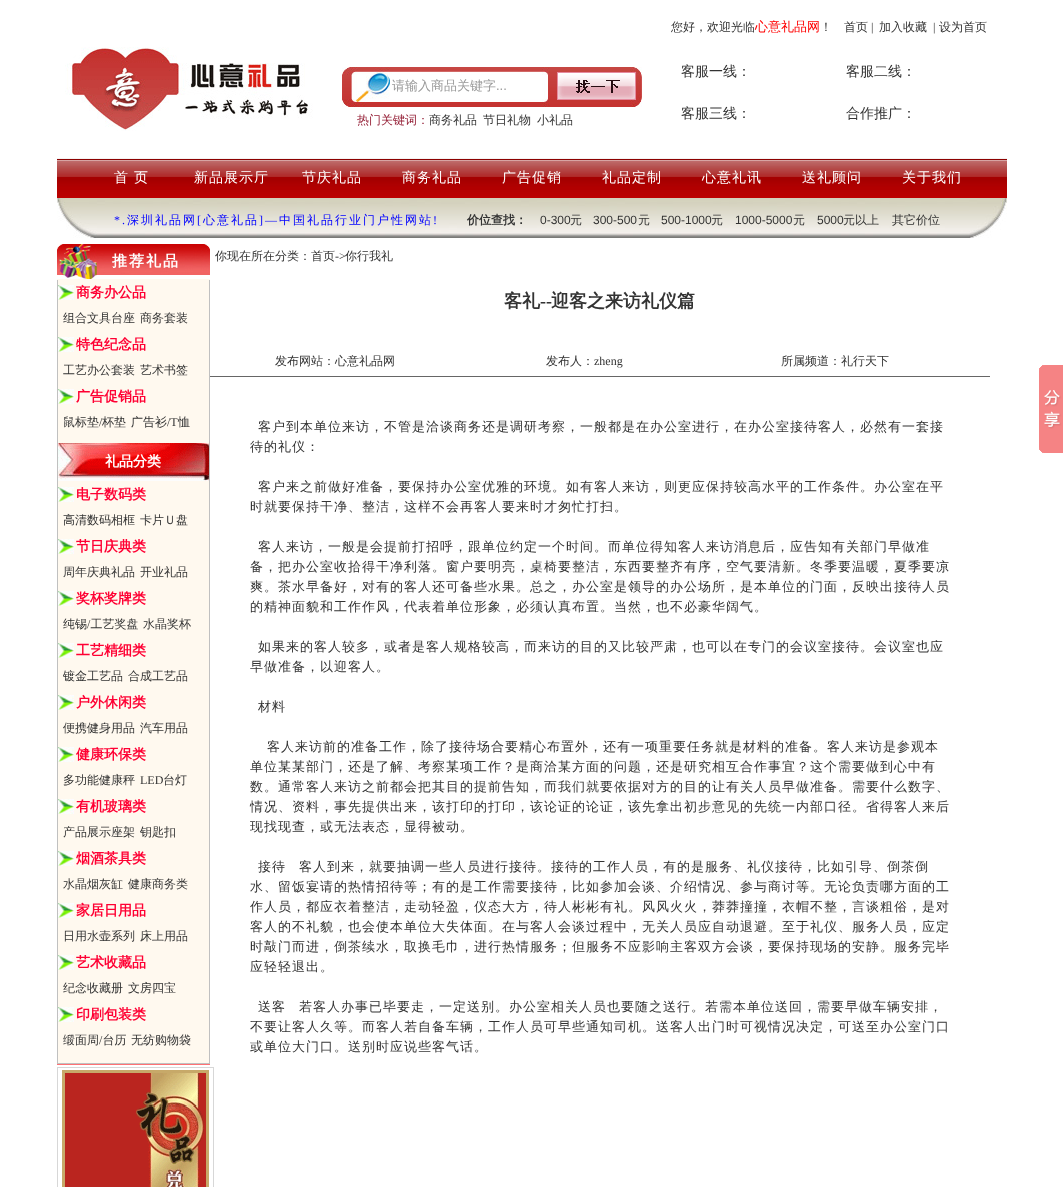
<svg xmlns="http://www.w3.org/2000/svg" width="1063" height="1187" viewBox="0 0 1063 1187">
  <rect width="100%" height="100%" fill="rgb(255,255,255)"/>
  <text x="671" y="31" font-family="WenQuanYi Zen Hei" font-size="12" font-weight="500" fill="rgb(51,51,51)">您好，欢迎光临</text>
  <text x="755" y="31" font-family="WenQuanYi Zen Hei" font-size="13" font-weight="500" fill="rgb(255,0,0)">心意礼品网</text>
  <g font-family="WenQuanYi Zen Hei" font-size="12" font-weight="500" fill="rgb(51,51,51)">
    <text x="820" y="31">！</text>
    <text x="844" y="31">首页</text>
  </g>
  <text x="871" y="31" font-family="Liberation Serif" font-size="12" fill="rgb(51,51,51)">|</text>
  <text x="879" y="31" font-family="WenQuanYi Zen Hei" font-size="12" font-weight="500" fill="rgb(51,51,51)">加入收藏</text>
  <text x="933" y="31" font-family="Liberation Serif" font-size="12" fill="rgb(51,51,51)">|</text>
  <text x="939" y="31" font-family="WenQuanYi Zen Hei" font-size="12" font-weight="500" fill="rgb(51,51,51)">设为首页</text>
  <image x="65" y="47" width="248" height="84" href="pic1.png"/>
  <image x="342" y="67" width="300" height="40" href="pic2.png"/>
  <rect x="392" y="72" width="150" height="2" fill="rgb(255,255,255)"/>
  <text x="392" y="90" font-family="WenQuanYi Zen Hei" font-size="13" font-weight="500" fill="rgb(153,153,153)">请输入商品关键字</text>
  <text x="496" y="90" font-family="Liberation Sans" font-size="13" fill="rgb(153,153,153)">...</text>
  <image x="557" y="72" width="79" height="28" href="pic3.png"/>
  <text x="357" y="124" font-family="WenQuanYi Zen Hei" font-size="12" font-weight="500" fill="rgb(149,32,55)">热门关键词：</text>
  <g font-family="WenQuanYi Zen Hei" font-size="12" font-weight="500" fill="rgb(51,51,51)">
    <text x="429" y="124">商务礼品</text>
    <text x="483" y="124">节日礼物</text>
    <text x="537" y="124">小礼品</text>
  </g>
  <g font-family="WenQuanYi Zen Hei" font-size="14" font-weight="500" fill="rgb(51,51,51)">
    <text x="681" y="76">客服一线：</text>
    <text x="846" y="76">客服二线：</text>
    <text x="681" y="118">客服三线：</text>
    <text x="846" y="118">合作推广：</text>
  </g>
  <image x="57" y="158" width="950" height="40" href="pic4.png"/>
  <g font-family="WenQuanYi Zen Hei" font-size="14" font-weight="500" letter-spacing="1" fill="rgb(255,255,255)">
    <text x="114" y="182">首</text>
    <text x="134" y="182">页</text>
    <text x="194" y="182">新品展示厅</text>
    <text x="302" y="182">节庆礼品</text>
    <text x="402" y="182">商务礼品</text>
    <text x="502" y="182">广告促销</text>
    <text x="602" y="182">礼品定制</text>
    <text x="702" y="182">心意礼讯</text>
    <text x="802" y="182">送礼顾问</text>
    <text x="902" y="182">关于我们</text>
  </g>
  <image x="57" y="198" width="950" height="40" href="pic5.png"/>
  <text x="114" y="224" font-family="Liberation Serif" font-size="12" letter-spacing="2" fill="rgb(0,0,255)">*.</text>
  <text x="127" y="224" font-family="WenQuanYi Zen Hei" font-size="12" font-weight="500" letter-spacing="2" fill="rgb(0,0,255)">深圳礼品网</text>
  <text x="197" y="224" font-family="Liberation Serif" font-size="12" letter-spacing="2" fill="rgb(0,0,255)">[</text>
  <text x="203" y="224" font-family="WenQuanYi Zen Hei" font-size="12" font-weight="500" letter-spacing="2" fill="rgb(0,0,255)">心意礼品</text>
  <text x="259" y="224" font-family="Liberation Serif" font-size="12" letter-spacing="2" fill="rgb(0,0,255)">]—</text>
  <text x="279" y="224" font-family="WenQuanYi Zen Hei" font-size="12" font-weight="500" letter-spacing="2" fill="rgb(0,0,255)">中国礼品行业门户性网站</text>
  <text x="433" y="224" font-family="Liberation Serif" font-size="12" letter-spacing="2" fill="rgb(0,0,255)">!</text>
  <text x="467" y="224" font-family="WenQuanYi Zen Hei" font-size="12" font-weight="bold" fill="rgb(51,51,51)">价位查找：</text>
  <text x="540" y="224" font-family="Liberation Sans" font-size="12" fill="rgb(51,51,51)">0-300</text>
  <text x="570" y="224" font-family="WenQuanYi Zen Hei" font-size="12" font-weight="500" fill="rgb(51,51,51)">元</text>
  <text x="593" y="224" font-family="Liberation Sans" font-size="12" fill="rgb(51,51,51)">300-500</text>
  <text x="638" y="224" font-family="WenQuanYi Zen Hei" font-size="12" font-weight="500" fill="rgb(51,51,51)">元</text>
  <text x="661" y="224" font-family="Liberation Sans" font-size="12" fill="rgb(51,51,51)">500-1000</text>
  <text x="711" y="224" font-family="WenQuanYi Zen Hei" font-size="12" font-weight="500" fill="rgb(51,51,51)">元</text>
  <text x="735" y="224" font-family="Liberation Sans" font-size="12" fill="rgb(51,51,51)">1000-5000</text>
  <text x="793" y="224" font-family="WenQuanYi Zen Hei" font-size="12" font-weight="500" fill="rgb(51,51,51)">元</text>
  <text x="817" y="224" font-family="Liberation Sans" font-size="12" fill="rgb(51,51,51)">5000</text>
  <g font-family="WenQuanYi Zen Hei" font-size="12" font-weight="500" fill="rgb(51,51,51)">
    <text x="843" y="224">元以上</text>
    <text x="892" y="224">其它价位</text>
  </g>
  <rect x="57" y="279" width="153" height="784" fill="rgb(255,249,239)"/>
  <rect x="57" y="1064" width="153" height="1" fill="rgb(255,113,116)"/>
  <image x="57" y="244" width="153" height="35" href="pic6.png"/>
  <text x="112" y="266" font-family="WenQuanYi Zen Hei" font-size="15" font-weight="bold" letter-spacing="2" fill="rgb(255,255,255)">推荐礼品</text>
  <rect x="209" y="280" width="1" height="784" fill="rgb(192,192,192)"/>
  <rect x="57" y="1063" width="153" height="1" fill="rgb(192,192,192)"/>
  <rect x="57" y="280" width="1" height="784" fill="rgb(192,192,192)"/>
  <image x="58" y="285" width="16" height="15" href="pic7.png"/>
  <text x="76" y="297" font-family="WenQuanYi Zen Hei" font-size="14" font-weight="bold" fill="rgb(255,0,51)">商务办公品</text>
  <g font-family="WenQuanYi Zen Hei" font-size="12" font-weight="500" fill="rgb(51,51,51)">
    <text x="63" y="322">组合文具台座</text>
    <text x="140" y="322">商务套装</text>
  </g>
  <image x="58" y="337" width="16" height="15" href="pic7.png"/>
  <text x="76" y="349" font-family="WenQuanYi Zen Hei" font-size="14" font-weight="bold" fill="rgb(255,0,51)">特色纪念品</text>
  <g font-family="WenQuanYi Zen Hei" font-size="12" font-weight="500" fill="rgb(51,51,51)">
    <text x="63" y="374">工艺办公套装</text>
    <text x="140" y="374">艺术书签</text>
  </g>
  <image x="58" y="389" width="16" height="15" href="pic7.png"/>
  <text x="76" y="401" font-family="WenQuanYi Zen Hei" font-size="14" font-weight="bold" fill="rgb(255,0,51)">广告促销品</text>
  <text x="63" y="426" font-family="WenQuanYi Zen Hei" font-size="12" font-weight="500" fill="rgb(51,51,51)">鼠标垫</text>
  <text x="99" y="426" font-family="Liberation Serif" font-size="12" fill="rgb(51,51,51)">/</text>
  <g font-family="WenQuanYi Zen Hei" font-size="12" font-weight="500" fill="rgb(51,51,51)">
    <text x="102" y="426">杯垫</text>
    <text x="131" y="426">广告衫</text>
  </g>
  <text x="167" y="426" font-family="Liberation Serif" font-size="12" fill="rgb(51,51,51)">/T</text>
  <text x="178" y="426" font-family="WenQuanYi Zen Hei" font-size="12" font-weight="500" fill="rgb(51,51,51)">恤</text>
  <image x="58" y="443" width="151" height="38" href="pic8.png"/>
  <text x="105" y="466" font-family="WenQuanYi Zen Hei" font-size="14" font-weight="bold" fill="rgb(255,255,255)">礼品分类</text>
  <image x="58" y="487" width="16" height="15" href="pic7.png"/>
  <text x="76" y="499" font-family="WenQuanYi Zen Hei" font-size="14" font-weight="bold" fill="rgb(255,0,51)">电子数码类</text>
  <g font-family="WenQuanYi Zen Hei" font-size="12" font-weight="500" fill="rgb(51,51,51)">
    <text x="63" y="524">高清数码相框</text>
    <text x="140" y="524">卡片Ｕ盘</text>
  </g>
  <image x="58" y="539" width="16" height="15" href="pic7.png"/>
  <text x="76" y="551" font-family="WenQuanYi Zen Hei" font-size="14" font-weight="bold" fill="rgb(255,0,51)">节日庆典类</text>
  <g font-family="WenQuanYi Zen Hei" font-size="12" font-weight="500" fill="rgb(51,51,51)">
    <text x="63" y="576">周年庆典礼品</text>
    <text x="140" y="576">开业礼品</text>
  </g>
  <image x="58" y="591" width="16" height="15" href="pic7.png"/>
  <text x="76" y="603" font-family="WenQuanYi Zen Hei" font-size="14" font-weight="bold" fill="rgb(255,0,51)">奖杯奖牌类</text>
  <text x="63" y="628" font-family="WenQuanYi Zen Hei" font-size="12" font-weight="500" fill="rgb(51,51,51)">纯锡 工艺奖盘</text>
  <text x="87" y="628" font-family="Liberation Serif" font-size="12" fill="rgb(51,51,51)">/</text>
  <text x="143" y="628" font-family="WenQuanYi Zen Hei" font-size="12" font-weight="500" fill="rgb(51,51,51)">水晶奖杯</text>
  <image x="58" y="643" width="16" height="15" href="pic7.png"/>
  <text x="76" y="655" font-family="WenQuanYi Zen Hei" font-size="14" font-weight="bold" fill="rgb(255,0,51)">工艺精细类</text>
  <g font-family="WenQuanYi Zen Hei" font-size="12" font-weight="500" fill="rgb(51,51,51)">
    <text x="63" y="680">镀金工艺品</text>
    <text x="128" y="680">合成工艺品</text>
  </g>
  <image x="58" y="695" width="16" height="15" href="pic7.png"/>
  <text x="76" y="707" font-family="WenQuanYi Zen Hei" font-size="14" font-weight="bold" fill="rgb(255,0,51)">户外休闲类</text>
  <g font-family="WenQuanYi Zen Hei" font-size="12" font-weight="500" fill="rgb(51,51,51)">
    <text x="63" y="732">便携健身用品</text>
    <text x="140" y="732">汽车用品</text>
  </g>
  <image x="58" y="747" width="16" height="15" href="pic7.png"/>
  <text x="76" y="759" font-family="WenQuanYi Zen Hei" font-size="14" font-weight="bold" fill="rgb(255,0,51)">健康环保类</text>
  <text x="63" y="784" font-family="WenQuanYi Zen Hei" font-size="12" font-weight="500" fill="rgb(51,51,51)">多功能健康秤</text>
  <text x="140" y="784" font-family="Liberation Serif" font-size="12" fill="rgb(51,51,51)">LED</text>
  <text x="163" y="784" font-family="WenQuanYi Zen Hei" font-size="12" font-weight="500" fill="rgb(51,51,51)">台灯</text>
  <image x="58" y="799" width="16" height="15" href="pic7.png"/>
  <text x="76" y="811" font-family="WenQuanYi Zen Hei" font-size="14" font-weight="bold" fill="rgb(255,0,51)">有机玻璃类</text>
  <g font-family="WenQuanYi Zen Hei" font-size="12" font-weight="500" fill="rgb(51,51,51)">
    <text x="63" y="836">产品展示座架</text>
    <text x="140" y="836">钥匙扣</text>
  </g>
  <image x="58" y="851" width="16" height="15" href="pic7.png"/>
  <text x="76" y="863" font-family="WenQuanYi Zen Hei" font-size="14" font-weight="bold" fill="rgb(255,0,51)">烟酒茶具类</text>
  <g font-family="WenQuanYi Zen Hei" font-size="12" font-weight="500" fill="rgb(51,51,51)">
    <text x="63" y="888">水晶烟灰缸</text>
    <text x="128" y="888">健康商务类</text>
  </g>
  <image x="58" y="903" width="16" height="15" href="pic7.png"/>
  <text x="76" y="915" font-family="WenQuanYi Zen Hei" font-size="14" font-weight="bold" fill="rgb(255,0,51)">家居日用品</text>
  <g font-family="WenQuanYi Zen Hei" font-size="12" font-weight="500" fill="rgb(51,51,51)">
    <text x="63" y="940">日用水壶系列</text>
    <text x="140" y="940">床上用品</text>
  </g>
  <image x="58" y="955" width="16" height="15" href="pic7.png"/>
  <text x="76" y="967" font-family="WenQuanYi Zen Hei" font-size="14" font-weight="bold" fill="rgb(255,0,51)">艺术收藏品</text>
  <g font-family="WenQuanYi Zen Hei" font-size="12" font-weight="500" fill="rgb(51,51,51)">
    <text x="63" y="992">纪念收藏册</text>
    <text x="128" y="992">文房四宝</text>
  </g>
  <image x="58" y="1007" width="16" height="15" href="pic7.png"/>
  <text x="76" y="1019" font-family="WenQuanYi Zen Hei" font-size="14" font-weight="bold" fill="rgb(255,0,51)">印刷包装类</text>
  <text x="63" y="1044" font-family="WenQuanYi Zen Hei" font-size="12" font-weight="500" fill="rgb(51,51,51)">缎面周 台历</text>
  <text x="99" y="1044" font-family="Liberation Serif" font-size="12" fill="rgb(51,51,51)">/</text>
  <text x="131" y="1044" font-family="WenQuanYi Zen Hei" font-size="12" font-weight="500" fill="rgb(51,51,51)">无纺购物袋</text>
  <rect x="57.5" y="1067.5" width="156" height="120" fill="none" stroke="rgb(215,215,215)"/>
  <image x="62" y="1070" width="147" height="117" href="pic9.png"/>
  <g font-family="WenQuanYi Zen Hei" font-size="12" font-weight="500" fill="rgb(51,51,51)">
    <text x="215" y="260">你现在所在分类：</text>
    <text x="311" y="260">首页</text>
  </g>
  <text x="335" y="260" font-family="Liberation Serif" font-size="12" fill="rgb(51,51,51)">-&gt;</text>
  <text x="345" y="260" font-family="WenQuanYi Zen Hei" font-size="12" font-weight="500" fill="rgb(51,51,51)">你行我礼</text>
  <text x="504" y="307" font-family="WenQuanYi Zen Hei" font-size="18" font-weight="bold" fill="rgb(51,51,51)">客礼</text>
  <text x="540" y="307" font-family="Liberation Serif" font-size="18" font-weight="bold" fill="rgb(51,51,51)">--</text>
  <text x="551" y="307" font-family="WenQuanYi Zen Hei" font-size="18" font-weight="bold" fill="rgb(51,51,51)">迎客之来访礼仪篇</text>
  <rect x="210" y="376" width="780" height="1" fill="rgb(102,102,102)"/>
  <g font-family="WenQuanYi Zen Hei" font-size="12" font-weight="500" fill="rgb(51,51,51)">
    <text x="275" y="365">发布网站：心意礼品网</text>
    <text x="546" y="365">发布人：</text>
  </g>
  <text x="594" y="365" font-family="Liberation Serif" font-size="12" fill="rgb(51,51,51)">zheng</text>
  <text x="781" y="365" font-family="WenQuanYi Zen Hei" font-size="12" font-weight="500" fill="rgb(51,51,51)">所属频道：礼行天下</text>
  <g font-family="WenQuanYi Zen Hei" font-size="13" font-weight="500" letter-spacing="1" fill="rgb(51,51,51)">
    <text x="258" y="431">客户到本单位来访，不管是洽谈商务还是调研考察，一般都是在办公室进行，在办公室接待客人，必然有一套接</text>
    <text x="250" y="451">待的礼仪：</text>
    <text x="258" y="491">客户来之前做好准备，要保持办公室优雅的环境。如有客人来访，则更应保持较高水平的工作条件。办公室在平</text>
    <text x="250" y="511">时就要保持干净、整洁，这样不会再客人要来时才匆忙打扫。</text>
    <text x="258" y="551">客人来访，一般是会提前打招呼，跟单位约定一个时间。而单位得知客人来访消息后，应告知有关部门早做准</text>
    <text>
      <tspan x="250" y="571">备，把办公室收拾得干净利落。窗户要明亮，桌椅要整洁，东西要整齐有序，空气要清新。冬季要温暖，夏季要凉</tspan>
      <tspan x="250" y="591">爽。茶水早备好，对有的客人还可备些水果。总之，办公室是领导的办公场所，是本单位的门面，反映出接待人员</tspan>
      <tspan x="250" y="611">的精神面貌和工作作风，代表着单位形象，必须认真布置。当然，也不必豪华阔气。</tspan>
    </text>
    <text x="258" y="651">如果来的客人较多，或者是客人规格较高，而来访的目的又比较严肃，也可以在专门的会议室接待。会议室也应</text>
    <text x="250" y="671">早做准备，以迎客人。</text>
    <text x="258" y="711">材料</text>
    <text x="267" y="751">客人来访前的准备工作，除了接待场合要精心布置外，还有一项重要任务就是材料的准备。客人来访是参观本</text>
    <text>
      <tspan x="250" y="771">单位某某部门，还是了解、考察某项工作？是商洽某方面的问题，还是研究相互合作事宜？这个需要做到心中有</tspan>
      <tspan x="250" y="791">数。通常客人来访之前都会把其目的提前告知，而我们就要依据对方的目的让有关人员早做准备。需要什么数字、</tspan>
      <tspan x="250" y="811">情况、资料，事先提供出来，该打印的打印，该论证的论证，该先拿出初步意见的先统一内部口径。省得客人来后</tspan>
      <tspan x="250" y="831">现找现查，或无法表态，显得被动。</tspan>
    </text>
    <text x="258" y="871">接待</text>
    <text x="299" y="871">客人到来，就要抽调一些人员进行接待。接待的工作人员，有的是服务、礼仪接待，比如引导、倒茶倒</text>
    <text>
      <tspan x="250" y="891">水、留饭宴请的热情招待等；有的是工作需要接待，比如参加会谈、介绍情况、参与商讨等。无论负责哪方面的工</tspan>
      <tspan x="250" y="911">作人员，都应衣着整洁，走动轻盈，仪态大方，待人彬彬有礼。风风火火，莽莽撞撞，衣帽不整，言谈粗俗，是对</tspan>
      <tspan x="250" y="931">客人的不礼貌，也会使本单位大失体面。在与客人会谈过程中，无关人员应自动退避。至于礼仪、服务人员，应定</tspan>
      <tspan x="250" y="951">时敲门而进，倒茶续水，取换毛巾，进行热情服务；但服务不应影响主客双方会谈，要保持现场的安静。服务完毕</tspan>
      <tspan x="250" y="971">应轻轻退出。</tspan>
    </text>
    <text x="258" y="1011">送客</text>
    <text x="299" y="1011">若客人办事已毕要走，一定送别。办公室相关人员也要随之送行。若需本单位送回，需要早做车辆安排，</text>
    <text>
      <tspan x="250" y="1031">不要让客人久等。而客人若自备车辆，工作人员可早些通知司机。送客人出门时可视情况决定，可送至办公室门口</tspan>
      <tspan x="250" y="1051">或单位大门口。送别时应说些客气话。</tspan>
    </text>
  </g>
  <image x="1039" y="365" width="24" height="88" href="pic10.png"/>
</svg>
